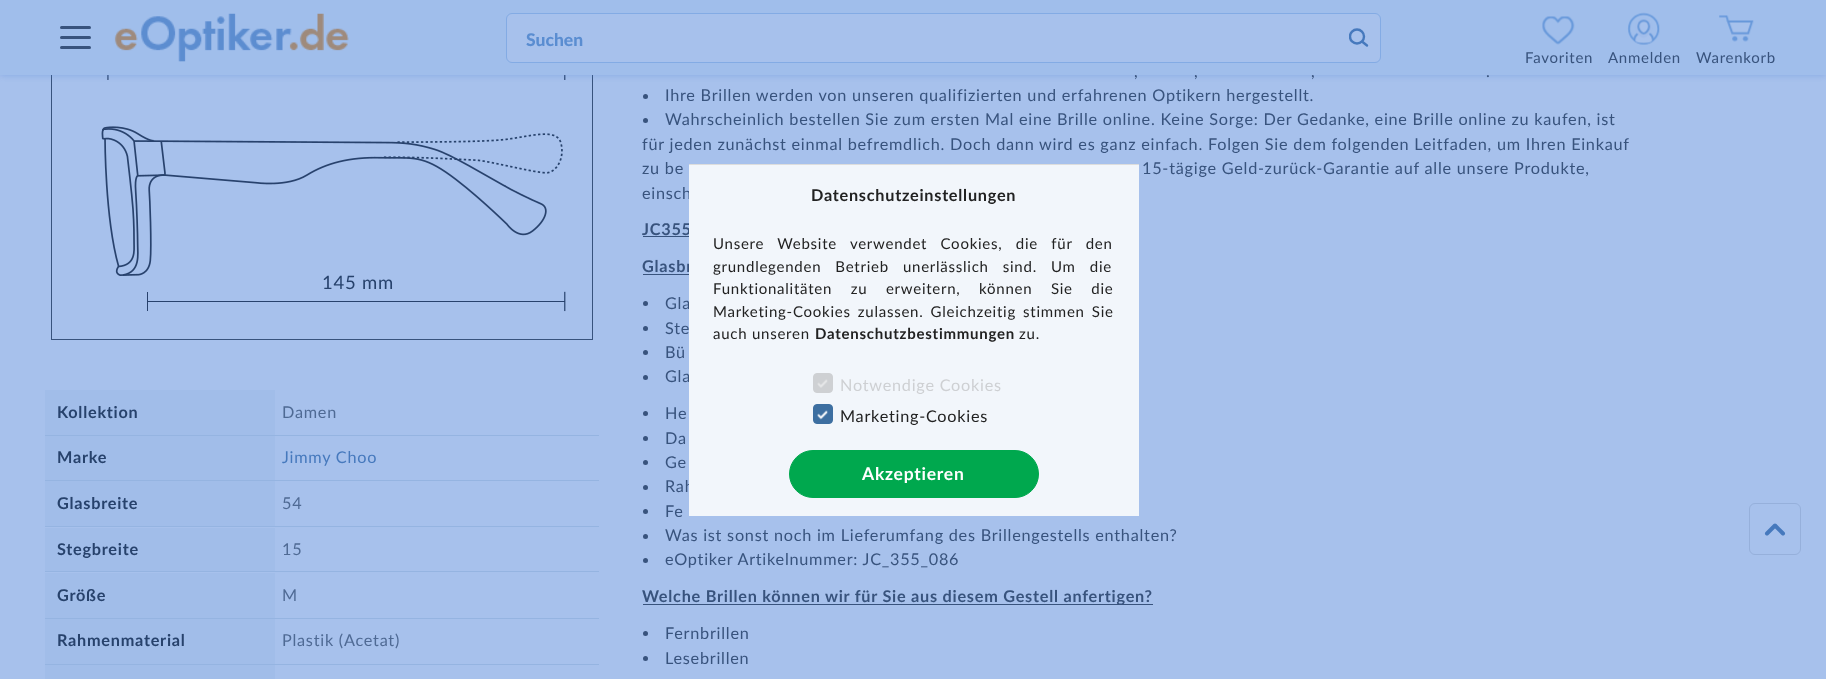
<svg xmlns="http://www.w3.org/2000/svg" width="1826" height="679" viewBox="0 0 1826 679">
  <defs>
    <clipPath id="clip1"><rect x="1349" y="28" width="20" height="20"/></clipPath>
  </defs>
  <rect width="100%" height="100%" fill="rgb(167,193,236)"/>
  <rect x="51.5" y="-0.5" width="541" height="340" fill="none" stroke="rgb(56,83,125)"/>
  <image x="101" y="75" width="465" height="237" href="pic5.png"/>
  <rect x="0" y="0" width="1826" height="75" fill="rgba(78,131,216,0.4)" filter="blur(3px)"/>
  <rect x="0" y="0" width="1826" height="75" fill="rgb(160,190,235)"/>
  <rect x="60" y="26" width="31" height="3" rx="1.5" fill="rgb(56,83,125)"/>
  <rect x="60" y="36" width="31" height="3" rx="1.5" fill="rgb(56,83,125)"/>
  <rect x="60" y="46" width="31" height="3" rx="1.5" fill="rgb(56,83,125)"/>
  <image x="114" y="13" width="235" height="49" href="pic1.png"/>
  <rect x="506.5" y="13.5" width="874" height="49" rx="5.5" fill="rgb(167,193,236)" stroke="rgb(131,171,228)"/>
  <text x="526" y="46" font-family="Lato" font-size="17.5" font-weight="900" fill="rgb(90,141,209)">Suchen</text>
  <path d="M1362 41.5L1367 45.5" fill="none" stroke="rgb(70,121,189)" stroke-width="2.4" stroke-linecap="round" stroke-linejoin="round"/>
  <circle cx="1357" cy="36.5" r="7" fill="rgb(167,193,236)"/>
  <g clip-path="url(#clip1)">
    <circle cx="1357" cy="36.5" r="7" fill="none" stroke="rgb(70,121,189)" stroke-width="2.4"/>
  </g>
  <image x="1542" y="16" width="33" height="29" href="pic2.png"/>
  <text x="1525" y="63" font-family="Lato" font-size="15" letter-spacing="0.75" fill="rgb(56,83,125)">Favoriten</text>
  <image x="1627" y="12" width="33" height="33" href="pic3.png"/>
  <text x="1608" y="63" font-family="Lato" font-size="15" letter-spacing="0.75" fill="rgb(56,83,125)">Anmelden</text>
  <image x="1719" y="15" width="35" height="27" href="pic4.png"/>
  <text x="1696" y="63" font-family="Lato" font-size="15" letter-spacing="0.75" fill="rgb(56,83,125)">Warenkorb</text>
  <text x="322" y="289" font-family="Lato" font-size="18.5" letter-spacing="0.75" fill="rgb(39,66,108)">145 mm</text>
  <rect x="45" y="390" width="230" height="45" fill="rgb(161,189,233)"/>
  <text x="57" y="418" font-family="Lato" font-size="16.25" font-weight="bold" letter-spacing="0.75" fill="rgb(39,66,108)">Kollektion</text>
  <text x="282" y="418" font-family="Lato" font-size="16.25" letter-spacing="0.75" fill="rgb(79,106,148)">Damen</text>
  <rect x="45" y="435" width="554" height="1" fill="rgb(149,180,225)"/>
  <rect x="45" y="436" width="230" height="44" fill="rgb(161,189,233)"/>
  <text x="57" y="463" font-family="Lato" font-size="16.25" font-weight="bold" letter-spacing="0.75" fill="rgb(39,66,108)">Marke</text>
  <text x="282" y="463" font-family="Lato" font-size="16.25" letter-spacing="0.75" fill="rgb(70,121,189)">Jimmy Choo</text>
  <rect x="45" y="480" width="554" height="1" fill="rgb(149,180,225)"/>
  <rect x="45" y="481" width="230" height="45" fill="rgb(161,189,233)"/>
  <text x="57" y="509" font-family="Lato" font-size="16.25" font-weight="bold" letter-spacing="0.75" fill="rgb(39,66,108)">Glasbreite</text>
  <text x="282" y="509" font-family="Lato" font-size="16.25" letter-spacing="0.75" fill="rgb(79,106,148)">54</text>
  <rect x="45" y="526" width="554" height="1" fill="rgb(149,180,225)"/>
  <rect x="45" y="528" width="230" height="43" fill="rgb(161,189,233)"/>
  <text x="57" y="555" font-family="Lato" font-size="16.25" font-weight="bold" letter-spacing="0.75" fill="rgb(39,66,108)">Stegbreite</text>
  <text x="282" y="555" font-family="Lato" font-size="16.25" letter-spacing="0.75" fill="rgb(79,106,148)">15</text>
  <rect x="45" y="571" width="554" height="1" fill="rgb(149,180,225)"/>
  <rect x="45" y="573" width="230" height="45" fill="rgb(161,189,233)"/>
  <text x="57" y="601" font-family="Lato" font-size="16.25" font-weight="bold" letter-spacing="0.75" fill="rgb(39,66,108)">Größe</text>
  <text x="282" y="601" font-family="Lato" font-size="16.25" letter-spacing="0.75" fill="rgb(79,106,148)">M</text>
  <rect x="45" y="618" width="554" height="1" fill="rgb(149,180,225)"/>
  <rect x="45" y="619" width="230" height="45" fill="rgb(161,189,233)"/>
  <text x="57" y="646" font-family="Lato" font-size="16.25" font-weight="bold" letter-spacing="0.75" fill="rgb(39,66,108)">Rahmenmaterial</text>
  <text x="282" y="646" font-family="Lato" font-size="16.25" letter-spacing="0.75" fill="rgb(79,106,148)">Plastik (Acetat)</text>
  <rect x="45" y="664" width="554" height="1" fill="rgb(149,180,225)"/>
  <rect x="45" y="665" width="230" height="14" fill="rgb(161,189,233)"/>
  <g font-family="Lato" font-size="16.25" letter-spacing="0.75" fill="rgb(56,83,125)">
    <text x="1134" y="77">,</text>
    <text x="1194" y="77">,</text>
    <text x="1311" y="77">,</text>
    <text x="1486" y="77">.</text>
  </g>
  <circle cx="645.5" cy="96.5" r="2.5" fill="rgb(56,83,125)"/>
  <text x="665" y="101" font-family="Lato" font-size="16.25" letter-spacing="0.75" fill="rgb(56,83,125)">Ihre Brillen werden von unseren qualifizierten und erfahrenen Optikern hergestellt.</text>
  <circle cx="645.5" cy="120.5" r="2.5" fill="rgb(56,83,125)"/>
  <g font-family="Lato" font-size="16.25" letter-spacing="0.75" fill="rgb(56,83,125)">
    <text x="665" y="125">Wahrscheinlich bestellen Sie zum ersten Mal eine Brille online. Keine Sorge: Der Gedanke, eine Brille online zu kaufen, ist</text>
    <text>
      <tspan x="642" y="150">für jeden zunächst einmal befremdlich. Doch dann wird es ganz einfach. Folgen Sie dem folgenden Leitfaden, um Ihren Einkauf</tspan>
      <tspan x="642" y="174">zu be</tspan>
    </text>
    <text x="1142" y="174">15-tägige Geld-zurück-Garantie auf alle unsere Produkte,</text>
    <text x="642" y="199">einsch</text>
  </g>
  <text x="642" y="235" font-family="Lato" font-size="16.25" font-weight="bold" letter-spacing="0.75" fill="rgb(56,83,125)">JC355</text>
  <rect x="643" y="236" width="46" height="1" fill="rgb(56,83,125)"/>
  <text x="642" y="272" font-family="Lato" font-size="16.25" font-weight="bold" letter-spacing="0.75" fill="rgb(56,83,125)">Glasbr</text>
  <rect x="643" y="274" width="46" height="1" fill="rgb(56,83,125)"/>
  <circle cx="645.5" cy="303.5" r="2.5" fill="rgb(56,83,125)"/>
  <text x="665" y="309" font-family="Lato" font-size="16.25" letter-spacing="0.75" fill="rgb(56,83,125)">Gla</text>
  <circle cx="645.5" cy="328.5" r="2.5" fill="rgb(56,83,125)"/>
  <text x="665" y="334" font-family="Lato" font-size="16.25" letter-spacing="0.75" fill="rgb(56,83,125)">Ste</text>
  <circle cx="645.5" cy="352.5" r="2.5" fill="rgb(56,83,125)"/>
  <text x="665" y="358" font-family="Lato" font-size="16.25" letter-spacing="0.75" fill="rgb(56,83,125)">Bü</text>
  <circle cx="645.5" cy="377.5" r="2.5" fill="rgb(56,83,125)"/>
  <text x="665" y="382" font-family="Lato" font-size="16.25" letter-spacing="0.75" fill="rgb(56,83,125)">Gla</text>
  <circle cx="645.5" cy="413.5" r="2.5" fill="rgb(56,83,125)"/>
  <text x="665" y="419" font-family="Lato" font-size="16.25" letter-spacing="0.75" fill="rgb(56,83,125)">He</text>
  <circle cx="645.5" cy="438.5" r="2.5" fill="rgb(56,83,125)"/>
  <text x="665" y="444" font-family="Lato" font-size="16.25" letter-spacing="0.75" fill="rgb(56,83,125)">Da</text>
  <circle cx="645.5" cy="462.5" r="2.5" fill="rgb(56,83,125)"/>
  <text x="665" y="468" font-family="Lato" font-size="16.25" letter-spacing="0.75" fill="rgb(56,83,125)">Ge</text>
  <circle cx="645.5" cy="487.5" r="2.5" fill="rgb(56,83,125)"/>
  <text x="665" y="492" font-family="Lato" font-size="16.25" letter-spacing="0.75" fill="rgb(56,83,125)">Rah</text>
  <circle cx="645.5" cy="511.5" r="2.5" fill="rgb(56,83,125)"/>
  <text x="665" y="517" font-family="Lato" font-size="16.25" letter-spacing="0.75" fill="rgb(56,83,125)">Fe</text>
  <circle cx="645.5" cy="536.5" r="2.5" fill="rgb(56,83,125)"/>
  <text x="665" y="541" font-family="Lato" font-size="16.25" letter-spacing="0.75" fill="rgb(56,83,125)">Was ist sonst noch im Lieferumfang des Brillengestells enthalten?</text>
  <circle cx="645.5" cy="560.5" r="2.5" fill="rgb(56,83,125)"/>
  <text x="665" y="565" font-family="Lato" font-size="16.25" letter-spacing="0.75" fill="rgb(56,83,125)">eOptiker Artikelnummer: JC_355_086</text>
  <rect x="643" y="604" width="510" height="1" fill="rgb(56,83,125)"/>
  <text x="642" y="602" font-family="Lato" font-size="16.25" font-weight="bold" letter-spacing="0.75" fill="rgb(56,83,125)">Welche Brillen können wir für Sie aus diesem Gestell anfertigen?</text>
  <circle cx="645.5" cy="633.5" r="2.5" fill="rgb(56,83,125)"/>
  <text x="665" y="639" font-family="Lato" font-size="16.25" letter-spacing="0.75" fill="rgb(56,83,125)">Fernbrillen</text>
  <circle cx="645.5" cy="658.5" r="2.5" fill="rgb(56,83,125)"/>
  <text x="665" y="664" font-family="Lato" font-size="16.25" letter-spacing="0.75" fill="rgb(56,83,125)">Lesebrillen</text>
  <rect x="689" y="165" width="450" height="351" fill="rgb(242,246,251)"/>
  <rect x="689" y="164" width="450" height="1" fill="rgb(221,221,221)"/>
  <text x="811" y="201" font-family="Lato" font-size="16.25" font-weight="bold" letter-spacing="0.75" fill="rgb(34,34,34)">Datenschutzeinstellungen</text>
  <g font-family="Lato" font-size="15" letter-spacing="0.75" fill="rgb(34,34,34)">
    <text>
      <tspan x="713" y="249" word-spacing="8.75">Unsere Website verwendet Cookies, die für den</tspan>
      <tspan x="713" y="272" word-spacing="9.5">grundlegenden Betrieb unerlässlich sind. Um die</tspan>
      <tspan x="713" y="294" word-spacing="14">Funktionalitäten zu erweitern, können Sie die</tspan>
      <tspan x="713" y="317" word-spacing="2.5">Marketing-Cookies zulassen. Gleichzeitig stimmen Sie</tspan>
      <tspan x="713" y="339">auch unseren</tspan>
    </text>
  </g>
  <text x="815" y="339" font-family="Lato" font-size="15" font-weight="bold" letter-spacing="0.75" fill="rgb(34,34,34)">Datenschutzbestimmungen</text>
  <text x="1019" y="339" font-family="Lato" font-size="15" letter-spacing="0.75" fill="rgb(34,34,34)">zu.</text>
  <rect x="813.5" y="373.5" width="19" height="19" rx="3.5" fill="rgb(206,208,211)" stroke="rgb(206,208,211)"/>
  <image x="817" y="379" width="11" height="9" href="pic6.png"/>
  <text x="840" y="391" font-family="Lato" font-size="16.25" letter-spacing="0.75" fill="rgb(206,208,211)">Notwendige Cookies</text>
  <rect x="813.5" y="404.5" width="19" height="19" rx="3.5" fill="rgb(61,111,161)" stroke="rgb(61,111,161)"/>
  <image x="817" y="410" width="11" height="10" href="pic7.png"/>
  <text x="840" y="422" font-family="Lato" font-size="16.25" letter-spacing="0.75" fill="rgb(34,34,34)">Marketing-Cookies</text>
  <rect x="789.5" y="450.5" width="249" height="47" rx="23.5" fill="rgb(0,168,78)" stroke="rgb(0,168,78)"/>
  <text x="862" y="480" font-family="Lato" font-size="17.5" font-weight="bold" letter-spacing="0.75" fill="rgb(255,255,255)">Akzeptieren</text>
  <rect x="1749.5" y="503.5" width="51" height="51" rx="5.5" fill="none" stroke="rgb(150,176,219)"/>
  <path d="M1767 533.5L1775 525.5L1783 533.5" fill="none" stroke="rgb(70,121,189)" stroke-width="4" stroke-linecap="round" stroke-linejoin="round"/>
</svg>
